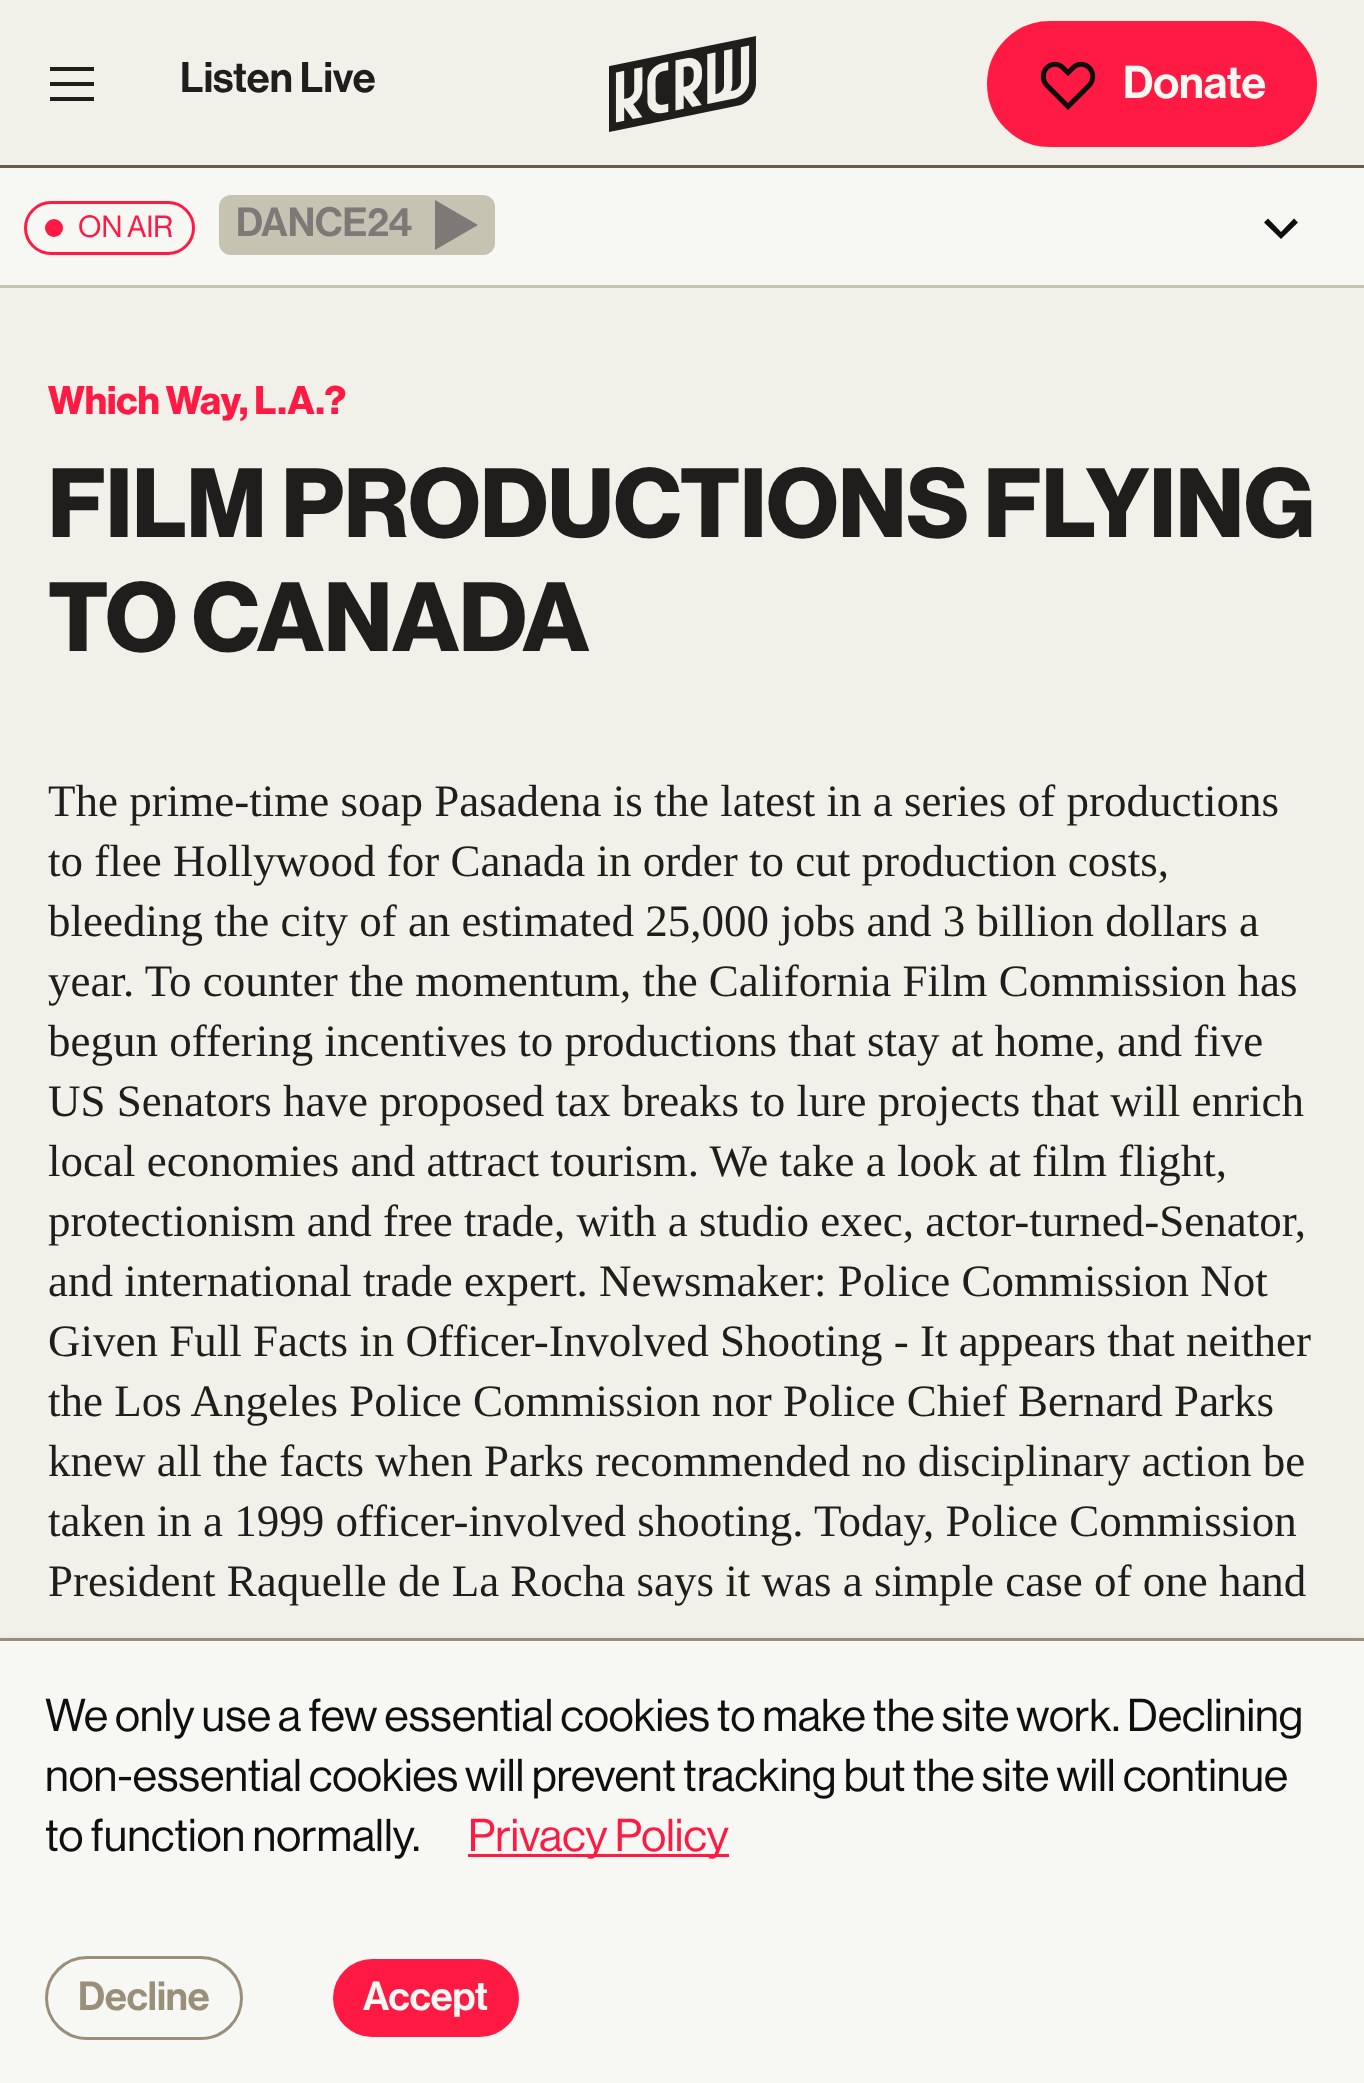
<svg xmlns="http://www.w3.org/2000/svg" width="1364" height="2083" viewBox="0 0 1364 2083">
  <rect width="100%" height="100%" fill="rgb(241,241,234)"/>
  <rect x="0" y="165" width="1364" height="3" fill="rgb(101,92,83)"/>
  <path d="M50 67H94V71H50ZM50 82H94V86H50ZM94 97H50V101H94Z" fill="rgb(32,30,29)" fill-rule="evenodd"/>
  <text x="180" y="92" font-family="'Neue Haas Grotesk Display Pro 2'" font-size="42" font-weight="500" fill="rgb(32,30,29)">Listen Live</text>
  <image x="609" y="36" width="147" height="96" href="pic1.png"/>
  <rect x="988.5" y="22.5" width="327" height="123" rx="61.5" fill="rgb(255,26,68)" stroke="rgb(255,26,68)" stroke-width="3"/>
  <image x="1040" y="61" width="56" height="49" href="pic2.png"/>
  <text x="1123" y="98" font-family="'Neue Haas Grotesk Display Pro 2'" font-size="45" font-weight="500" fill="rgb(247,247,243)">Donate</text>
  <rect x="0" y="168" width="1364" height="117" fill="rgb(247,247,243)"/>
  <rect x="0" y="285" width="1364" height="3" fill="rgb(199,196,174)"/>
  <rect x="25.5" y="202.5" width="168" height="51" rx="25.5" fill="none" stroke="rgb(255,26,68)" stroke-width="3"/>
  <circle cx="54" cy="228" r="9" fill="rgb(255,26,68)"/>
  <text x="78" y="237" font-family="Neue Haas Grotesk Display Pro" font-size="30" font-weight="500" fill="rgb(255,26,68)">ON AIR</text>
  <rect x="219" y="195" width="276" height="60" rx="12" fill="rgb(239,239,239)"/>
  <rect x="219" y="195" width="276" height="60" rx="12" fill="rgba(182,177,154,0.7)"/>
  <text x="236" y="236" font-family="'Neue Haas Grotesk Display Pro 2'" font-size="40" font-weight="500" fill="rgb(126,121,118)">DANCE24</text>
  <path d="M435 200V250L478 225Z" fill="rgb(126,121,118)"/>
  <path d="M1264 222.5L1268 218.5L1281 232L1294 218.5L1298 222.5L1281 239Z" fill="rgb(16,15,15)" fill-rule="evenodd"/>
  <text x="48" y="414" font-family="Neue Haas Grotesk Display Pro" font-size="39" font-weight="bold" fill="rgb(255,26,68)">Which Way, L.A.?</text>
  <g font-family="Neue Haas Grotesk Display Pro" font-size="96" font-weight="bold" fill="rgb(32,30,29)">
    <text>
      <tspan x="48" y="537">FILM PRODUCTIONS FLYING</tspan>
      <tspan x="48" y="651">TO CANADA</tspan>
    </text>
  </g>
  <g font-family="Liberation Serif" font-size="45" fill="rgb(32,30,29)">
    <text>
      <tspan x="48" y="816">The prime-time soap Pasadena is the latest in a series of productions</tspan>
      <tspan x="48" y="876">to flee Hollywood for Canada in order to cut production costs,</tspan>
      <tspan x="48" y="936">bleeding the city of an estimated 25,000 jobs and 3 billion dollars a</tspan>
      <tspan x="48" y="996">year. To counter the momentum, the California Film Commission has</tspan>
      <tspan x="48" y="1056">begun offering incentives to productions that stay at home, and five</tspan>
      <tspan x="48" y="1116">US Senators have proposed tax breaks to lure projects that will enrich</tspan>
      <tspan x="48" y="1176">local economies and attract tourism. We take a look at film flight,</tspan>
      <tspan x="48" y="1236">protectionism and free trade, with a studio exec, actor-turned-Senator,</tspan>
      <tspan x="48" y="1296">and international trade expert. Newsmaker: Police Commission Not</tspan>
      <tspan x="48" y="1356">Given Full Facts in Officer-Involved Shooting - It appears that neither</tspan>
      <tspan x="48" y="1416">the Los Angeles Police Commission nor Police Chief Bernard Parks</tspan>
      <tspan x="48" y="1476">knew all the facts when Parks recommended no disciplinary action be</tspan>
      <tspan x="48" y="1536">taken in a 1999 officer-involved shooting. Today, Police Commission</tspan>
      <tspan x="48" y="1596">President Raquelle de La Rocha says it was a simple case of one hand</tspan>
    </text>
  </g>
  <rect x="0" y="1644" width="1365" height="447" fill="rgba(103,5,17,0.25)" filter="blur(6px)"/>
  <rect x="0" y="1641" width="1364" height="442" fill="rgb(247,247,243)"/>
  <rect x="0" y="1638" width="1364" height="3" fill="rgb(154,144,121)"/>
  <g font-family="Neue Haas Grotesk Display Pro" font-size="45" font-weight="500" fill="rgb(15,15,15)">
    <text>
      <tspan x="45" y="1731">We only use a few essential cookies to make the site work. Declining</tspan>
      <tspan x="45" y="1791">non-essential cookies will prevent tracking but the site will continue</tspan>
      <tspan x="45" y="1851">to function normally.</tspan>
    </text>
  </g>
  <rect x="468" y="1854" width="261" height="3" fill="rgb(255,26,68)"/>
  <text x="468" y="1851" font-family="Neue Haas Grotesk Display Pro" font-size="45" font-weight="500" fill="rgb(255,26,68)">Privacy Policy</text>
  <rect x="46.5" y="1957.5" width="195" height="81" rx="40.5" fill="none" stroke="rgb(154,144,121)" stroke-width="3"/>
  <text x="78" y="2010" font-family="'Neue Haas Grotesk Display Pro 2'" font-size="40" font-weight="500" fill="rgb(154,144,121)">Decline</text>
  <rect x="333" y="1959" width="186" height="78" rx="39" fill="rgb(255,26,68)"/>
  <text x="363" y="2010" font-family="'Neue Haas Grotesk Display Pro 2'" font-size="40" font-weight="500" fill="rgb(247,247,243)">Accept</text>
</svg>
